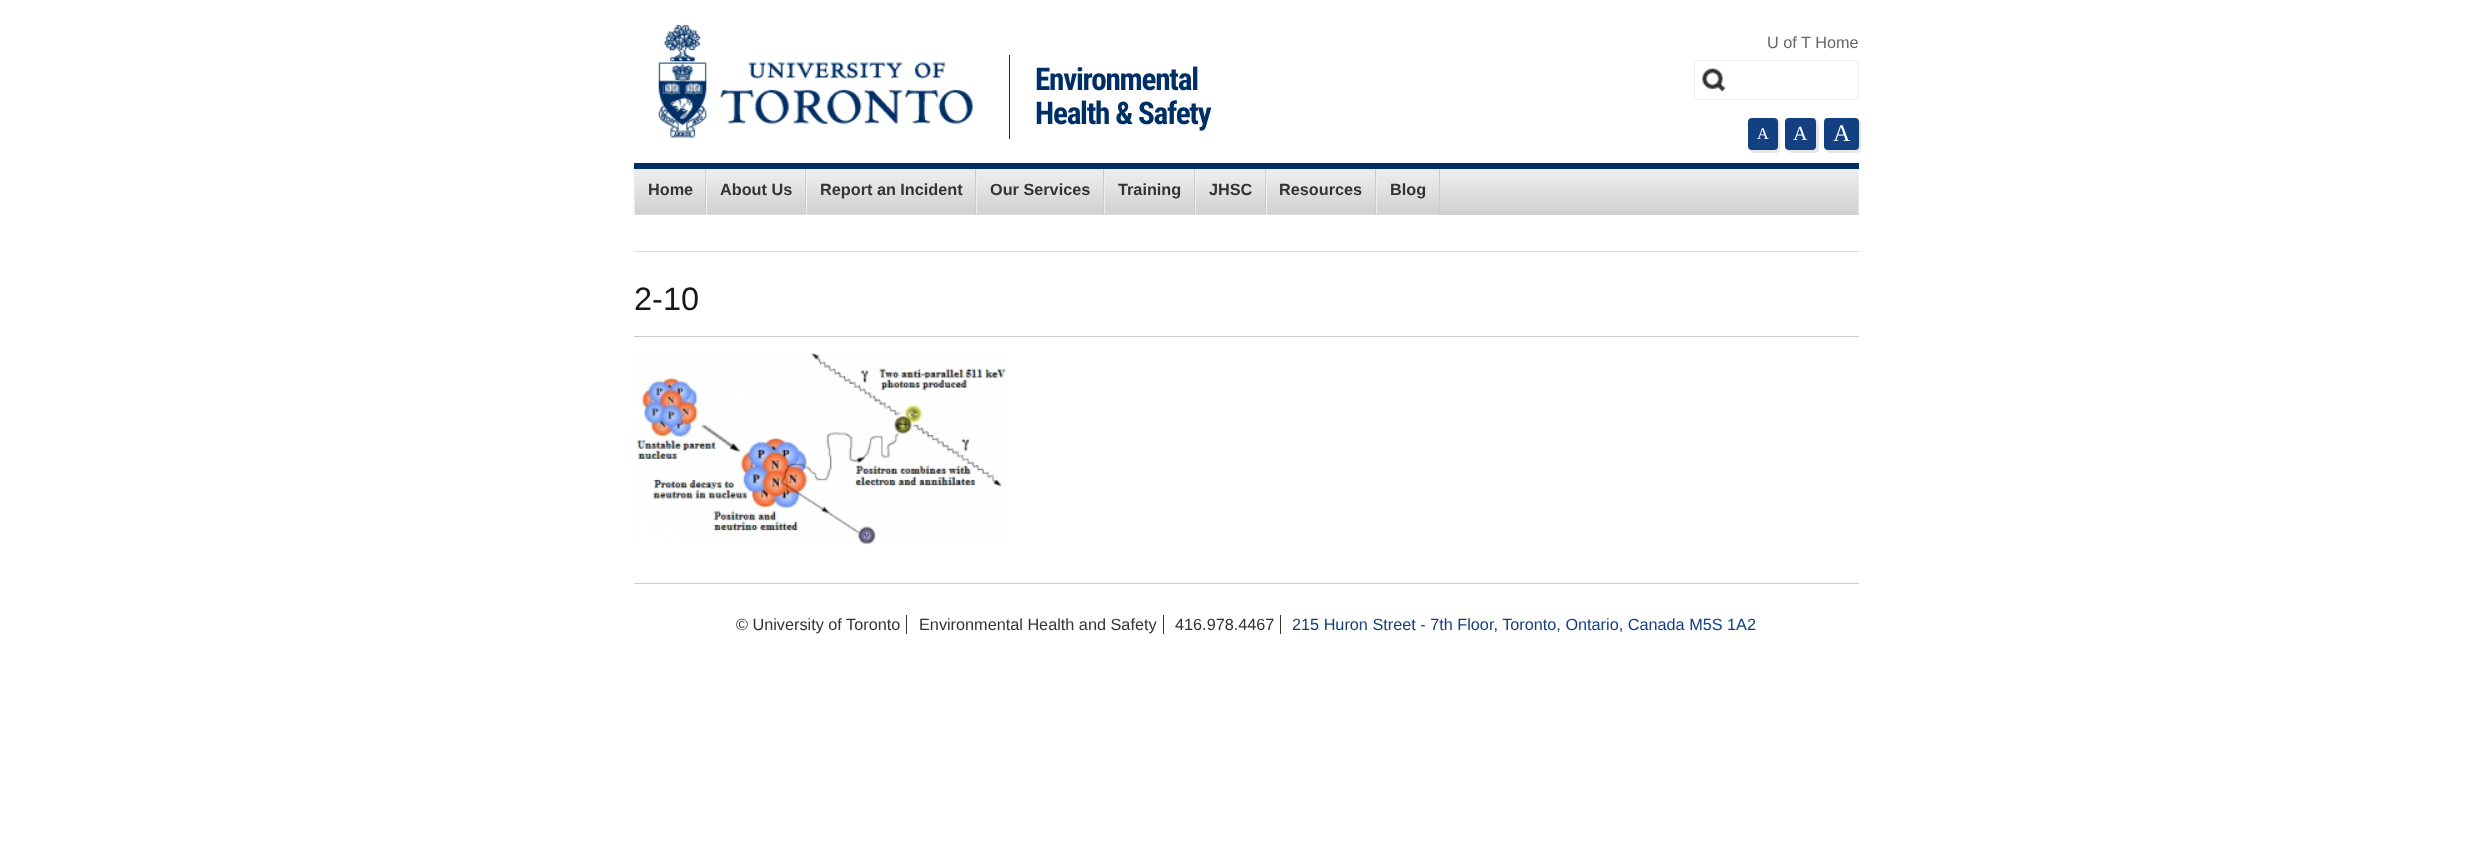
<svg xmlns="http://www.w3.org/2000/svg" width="2492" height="852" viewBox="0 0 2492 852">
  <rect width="100%" height="100%" fill="rgb(255,255,255)"/>
  <image x="658" y="25" width="315" height="113" href="pic1.png"/>
  <text x="1767" y="48" font-family="Liberation Sans" font-size="16.25" fill="rgb(102,102,102)">U of T Home</text>
  <rect x="1009" y="55" width="1" height="84" fill="rgb(0,47,101)"/>
  <g font-family="Roboto Condensed" font-size="31.25" font-weight="bold" letter-spacing="-1.25" fill="rgb(0,47,101)">
    <text>
      <tspan x="1035" y="90">Environmental</tspan>
      <tspan x="1035" y="124">Health &amp; Safety</tspan>
    </text>
  </g>
  <image x="1702" y="68" width="24" height="24" href="pic2.png"/>
  <rect x="1694.5" y="60.5" width="164" height="39" rx="3.5" fill="none" stroke="rgb(238,238,238)"/>
  <path d="M1750 150C1750.5 151.5 1752 153 1754 153H1776C1778 153 1780 151 1780 149V124C1780 122.5 1779 121 1777.5 120V147C1776.5 150.5 1772.5 150 1770 150Z" fill="rgb(230,230,230)"/>
  <rect x="1748" y="118" width="30" height="32" rx="4" fill="rgb(19,64,128)"/>
  <text x="1757" y="139" font-family="Liberation Serif" font-size="16.25" fill="rgb(255,255,255)">A</text>
  <path d="M1788 150C1788.5 151.5 1790 153 1792 153H1815C1817 153 1819 151 1819 149V124C1819 122 1818 120.5 1816 120V138C1816 151 1817.5 150 1804.5 150Z" fill="rgb(230,230,230)"/>
  <rect x="1785" y="118" width="31" height="32" rx="4" fill="rgb(19,64,128)"/>
  <text x="1793" y="140" font-family="Liberation Serif" font-size="20" fill="rgb(255,255,255)">A</text>
  <path d="M1826 149.5C1826.5 151.5 1828 153 1830 153H1857C1859 153 1861 151 1861 149V124C1861 122.5 1860 121 1858.5 120.5V147C1858 151 1853 150 1850.5 150H1832C1831 150 1828 150.5 1826 149.5Z" fill="rgb(230,230,230)"/>
  <rect x="1824" y="118" width="35" height="32" rx="4" fill="rgb(19,64,128)"/>
  <text x="1833" y="141" font-family="Liberation Serif" font-size="24" fill="rgb(255,255,255)">A</text>
  <image x="633" y="168" width="1226" height="47" href="pic3.png"/>
  <rect x="634" y="163" width="1225" height="6" fill="rgb(0,47,101)"/>
  <rect x="705" y="169" width="1" height="46" fill="rgb(204,204,204)"/>
  <rect x="634" y="214" width="72" height="1" fill="rgb(221,221,221)"/>
  <rect x="634" y="169" width="1" height="46" fill="rgb(238,238,238)"/>
  <text x="648" y="195" font-family="Liberation Sans" font-size="16.25" font-weight="bold" fill="rgb(51,51,51)">Home</text>
  <rect x="805" y="169" width="1" height="46" fill="rgb(204,204,204)"/>
  <rect x="706" y="214" width="100" height="1" fill="rgb(221,221,221)"/>
  <rect x="706" y="169" width="1" height="46" fill="rgb(238,238,238)"/>
  <text x="720" y="195" font-family="Liberation Sans" font-size="16.25" font-weight="bold" fill="rgb(51,51,51)">About Us</text>
  <rect x="975" y="169" width="1" height="46" fill="rgb(204,204,204)"/>
  <rect x="806" y="214" width="170" height="1" fill="rgb(221,221,221)"/>
  <rect x="806" y="169" width="1" height="46" fill="rgb(238,238,238)"/>
  <text x="820" y="195" font-family="Liberation Sans" font-size="16.25" font-weight="bold" fill="rgb(51,51,51)">Report an Incident</text>
  <rect x="1103" y="169" width="1" height="46" fill="rgb(204,204,204)"/>
  <rect x="976" y="214" width="128" height="1" fill="rgb(221,221,221)"/>
  <rect x="976" y="169" width="1" height="46" fill="rgb(238,238,238)"/>
  <text x="990" y="195" font-family="Liberation Sans" font-size="16.25" font-weight="bold" fill="rgb(51,51,51)">Our Services</text>
  <rect x="1194" y="169" width="1" height="46" fill="rgb(204,204,204)"/>
  <rect x="1104" y="214" width="91" height="1" fill="rgb(221,221,221)"/>
  <rect x="1104" y="169" width="1" height="46" fill="rgb(238,238,238)"/>
  <text x="1118" y="195" font-family="Liberation Sans" font-size="16.25" font-weight="bold" fill="rgb(51,51,51)">Training</text>
  <rect x="1265" y="169" width="1" height="46" fill="rgb(204,204,204)"/>
  <rect x="1195" y="214" width="71" height="1" fill="rgb(221,221,221)"/>
  <rect x="1195" y="169" width="1" height="46" fill="rgb(238,238,238)"/>
  <text x="1209" y="195" font-family="Liberation Sans" font-size="16.25" font-weight="bold" fill="rgb(51,51,51)">JHSC</text>
  <rect x="1375" y="169" width="1" height="46" fill="rgb(204,204,204)"/>
  <rect x="1266" y="214" width="110" height="1" fill="rgb(221,221,221)"/>
  <rect x="1266" y="169" width="1" height="46" fill="rgb(238,238,238)"/>
  <text x="1279" y="195" font-family="Liberation Sans" font-size="16.25" font-weight="bold" fill="rgb(51,51,51)">Resources</text>
  <rect x="1439" y="169" width="1" height="46" fill="rgb(204,204,204)"/>
  <rect x="1376" y="214" width="64" height="1" fill="rgb(221,221,221)"/>
  <rect x="1376" y="169" width="1" height="46" fill="rgb(238,238,238)"/>
  <text x="1390" y="195" font-family="Liberation Sans" font-size="16.25" font-weight="bold" fill="rgb(51,51,51)">Blog</text>
  <rect x="634" y="251" width="1225" height="1" fill="rgb(221,221,221)"/>
  <rect x="634" y="336" width="1225" height="1" fill="rgb(204,204,204)"/>
  <text x="634" y="310" font-family="Liberation Sans" font-size="32.5" fill="rgb(24,24,24)">2-10</text>
  <image x="634" y="353" width="373" height="192" href="pic4.png"/>
  <rect x="634" y="583" width="1225" height="1" fill="rgb(205,205,205)"/>
  <text x="736" y="630" font-family="Liberation Sans" font-size="16.25" fill="rgb(51,51,51)">© University of Toronto</text>
  <rect x="906" y="615" width="1" height="19" fill="rgb(51,51,51)"/>
  <text x="919" y="630" font-family="Liberation Sans" font-size="16.25" fill="rgb(51,51,51)">Environmental Health and Safety</text>
  <rect x="1163" y="615" width="1" height="19" fill="rgb(51,51,51)"/>
  <text x="1175" y="630" font-family="Liberation Sans" font-size="16.25" fill="rgb(51,51,51)">416.978.4467</text>
  <rect x="1280" y="615" width="1" height="19" fill="rgb(51,51,51)"/>
  <text x="1292" y="630" font-family="Liberation Sans" font-size="16.25" fill="rgb(19,63,127)">215 Huron Street - 7th Floor, Toronto, Ontario, Canada M5S 1A2</text>
</svg>
